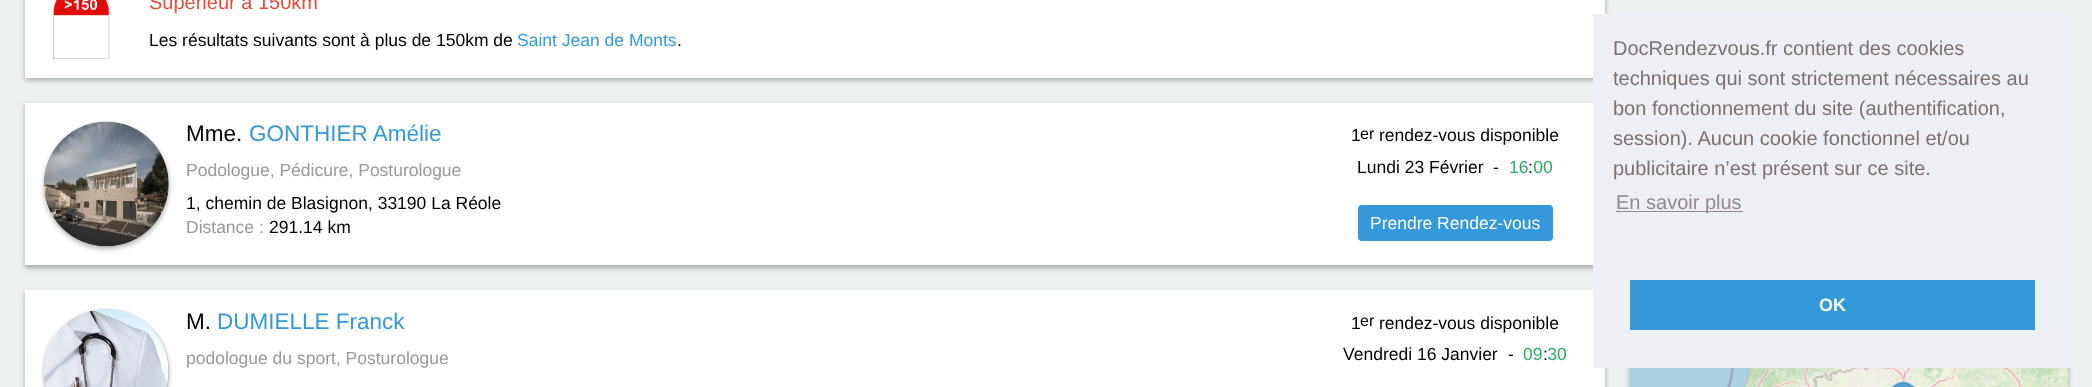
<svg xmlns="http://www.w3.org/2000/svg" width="2092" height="387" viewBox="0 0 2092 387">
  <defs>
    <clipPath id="clip1"><rect x="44" y="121" width="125" height="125" rx="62.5"/></clipPath>
    <clipPath id="clip2"><rect x="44" y="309" width="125" height="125" rx="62.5"/></clipPath>
  </defs>
  <rect width="100%" height="100%" fill="rgb(236,240,241)"/>
  <rect x="25" y="-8" width="1580" height="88" fill="rgba(0,0,0,0.3)" filter="blur(2.5px)"/>
  <rect x="25" y="0" width="1580" height="78" fill="rgb(255,255,255)"/>
  <image x="53" y="0" width="57" height="59" href="pic1.png"/>
  <text x="149" y="9" font-family="Liberation Sans" font-size="20" fill="rgb(231,76,60)">Supérieur à 150km</text>
  <text x="149" y="46" font-family="Liberation Sans" font-size="17.5" fill="rgb(0,0,0)">Les résultats suivants sont à plus de 150km de</text>
  <text x="517" y="46" font-family="Liberation Sans" font-size="17.5" fill="rgb(52,152,219)">Saint Jean de Monts</text>
  <text x="677" y="46" font-family="Liberation Sans" font-size="17.5" fill="rgb(0,0,0)">.</text>
  <rect x="25" y="105" width="1580" height="163" fill="rgba(0,0,0,0.3)" filter="blur(2.5px)"/>
  <rect x="25" y="103" width="1568" height="162" fill="rgb(255,255,255)"/>
  <rect x="44" y="124" width="125" height="125" rx="62.5" fill="rgba(0,0,0,0.3)" filter="blur(2.5px)"/>
  <g clip-path="url(#clip1)">
    <rect x="44" y="124" width="125" height="125" rx="62.5" fill="rgba(0,0,0,0.3)" filter="blur(2.5px)"/>
  </g>
  <image x="44" y="121" width="125" height="126" href="pic2.png"/>
  <text x="186" y="141" font-family="Liberation Sans" font-size="22.5" fill="rgb(0,0,0)">Mme.</text>
  <text x="249" y="141" font-family="Liberation Sans" font-size="22.5" fill="rgb(52,152,219)">GONTHIER Amélie</text>
  <text x="186" y="176" font-family="Liberation Sans" font-size="17.5" fill="rgb(153,153,153)">Podologue, Pédicure, Posturologue</text>
  <text x="186" y="209" font-family="Liberation Sans" font-size="17.5" fill="rgb(0,0,0)">1, chemin de Blasignon, 33190 La Réole</text>
  <text x="186" y="233" font-family="Liberation Sans" font-size="17.5" fill="rgb(153,153,153)">Distance :</text>
  <g font-family="Liberation Sans" font-size="17.5" fill="rgb(0,0,0)">
    <text x="269" y="233">291.14 km</text>
    <text x="1351" y="141">1</text>
  </g>
  <text x="1360" y="139" font-family="Liberation Sans" font-size="16" fill="rgb(0,0,0)">er</text>
  <g font-family="Liberation Sans" font-size="17.5" fill="rgb(0,0,0)">
    <text x="1379" y="141">rendez-vous disponible</text>
    <text x="1357" y="173">Lundi 23 Février</text>
  </g>
  <text x="1509" y="173" font-family="Liberation Sans" font-size="17.5" fill="rgb(39,174,96)">16 00</text>
  <g font-family="Liberation Sans" font-size="17.5" fill="rgb(0,0,0)">
    <text x="1493" y="173">-</text>
    <text x="1528" y="173">:</text>
  </g>
  <rect x="1358" y="205" width="195" height="36" rx="4" fill="rgb(52,152,219)"/>
  <text x="1370" y="229" font-family="Liberation Sans" font-size="17.5" fill="rgb(255,255,255)">Prendre Rendez-vous</text>
  <rect x="25" y="293" width="1580" height="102" fill="rgba(0,0,0,0.3)" filter="blur(2.5px)"/>
  <rect x="25" y="290" width="1580" height="97" fill="rgb(255,255,255)"/>
  <rect x="44" y="311" width="125" height="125" rx="62.5" fill="rgba(0,0,0,0.3)" filter="blur(2.5px)"/>
  <g clip-path="url(#clip2)">
    <rect x="44" y="311" width="125" height="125" rx="62.5" fill="rgba(0,0,0,0.3)" filter="blur(2.5px)"/>
  </g>
  <image x="44" y="309" width="125" height="78" href="pic3.png"/>
  <text x="186" y="329" font-family="Liberation Sans" font-size="22.5" fill="rgb(0,0,0)">M.</text>
  <text x="217" y="329" font-family="Liberation Sans" font-size="22.5" fill="rgb(52,152,219)">DUMIELLE Franck</text>
  <text x="186" y="364" font-family="Liberation Sans" font-size="17.5" fill="rgb(153,153,153)">podologue du sport, Posturologue</text>
  <text x="1351" y="329" font-family="Liberation Sans" font-size="17.5" fill="rgb(0,0,0)">1</text>
  <text x="1360" y="326" font-family="Liberation Sans" font-size="16" fill="rgb(0,0,0)">er</text>
  <g font-family="Liberation Sans" font-size="17.5" fill="rgb(0,0,0)">
    <text x="1379" y="329">rendez-vous disponible</text>
    <text x="1343" y="360">Vendredi 16 Janvier</text>
  </g>
  <text x="1523" y="360" font-family="Liberation Sans" font-size="17.5" fill="rgb(39,174,96)">09 30</text>
  <g font-family="Liberation Sans" font-size="17.5" fill="rgb(0,0,0)">
    <text x="1508" y="360">-</text>
    <text x="1543" y="360">:</text>
  </g>
  <rect x="1630" y="28" width="438" height="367" fill="rgba(0,0,0,0.3)" filter="blur(2.5px)"/>
  <image x="1630" y="368" width="197" height="19" href="pic4.png"/>
  <image x="1827" y="368" width="241" height="19" href="pic5.png"/>
  <image x="1891" y="381" width="25" height="6" href="pic6.png"/>
  <rect x="1593" y="14" width="480" height="354" fill="rgb(237,239,245)"/>
  <g font-family="Liberation Sans" font-size="20" fill="rgb(125,112,112)">
    <text>
      <tspan x="1613" y="55">DocRendezvous.fr contient des cookies</tspan>
      <tspan x="1613" y="85">techniques qui sont strictement nécessaires au</tspan>
      <tspan x="1613" y="115">bon fonctionnement du site (authentification,</tspan>
      <tspan x="1613" y="145">session). Aucun cookie fonctionnel et/ou</tspan>
      <tspan x="1613" y="175">publicitaire n’est présent sur ce site.</tspan>
    </text>
  </g>
  <rect x="1616" y="211" width="127" height="1" fill="rgb(147,137,139)"/>
  <text x="1616" y="209" font-family="Liberation Sans" font-size="20" fill="rgb(147,137,139)">En savoir plus</text>
  <rect x="1630" y="280" width="405" height="50" fill="rgb(52,152,219)"/>
  <text x="1819" y="311" font-family="Liberation Sans" font-size="18" font-weight="bold" fill="rgb(255,255,255)">OK</text>
</svg>
